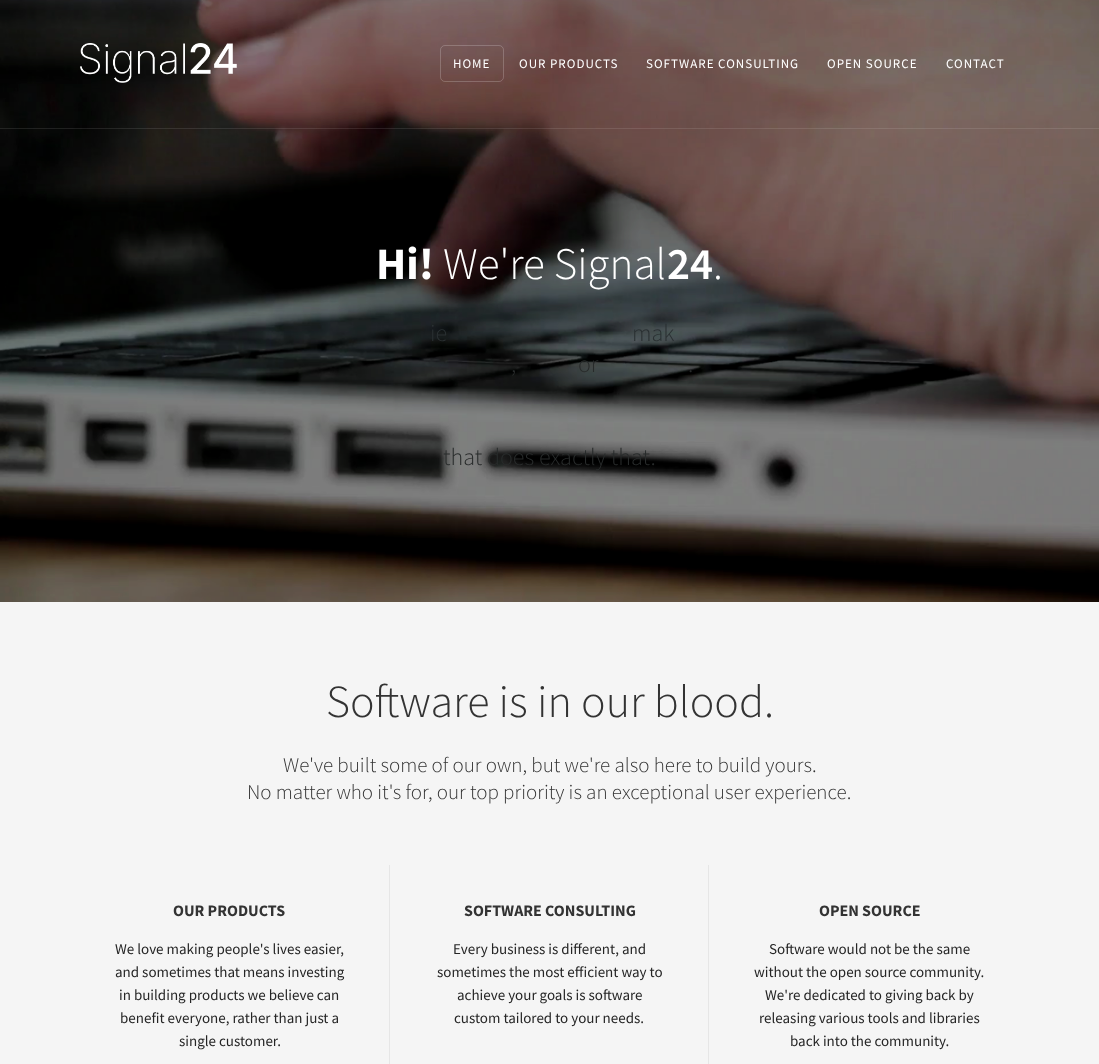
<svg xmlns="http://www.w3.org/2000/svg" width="1099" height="1064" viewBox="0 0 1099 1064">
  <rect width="100%" height="100%" fill="rgb(255,255,255)"/>
  <image x="0" y="0" width="1099" height="602" href="pic2.png"/>
  <rect x="0" y="128" width="1099" height="1" fill="rgba(255,255,255,0.1)"/>
  <image x="80" y="43" width="157" height="40" href="pic1.png"/>
  <rect x="440.5" y="45.5" width="63" height="36" rx="4.5" fill="none" stroke="rgba(255,255,255,0.2)"/>
  <g font-family="Source Sans Pro" font-size="13" letter-spacing="1" fill="rgb(255,255,255)">
    <text x="453" y="68">HOME</text>
    <text x="519" y="68">OUR PRODUCTS</text>
    <text x="646" y="68">SOFTWARE CONSULTING</text>
    <text x="827" y="68">OPEN SOURCE</text>
    <text x="946" y="68">CONTACT</text>
  </g>
  <text x="376" y="279" font-family="Source Sans Pro" font-size="45" font-weight="bold" fill="rgb(255,255,255)">Hi!</text>
  <text x="443" y="279" font-family="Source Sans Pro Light" font-size="45" font-weight="300" fill="rgb(255,255,255)">We're Signal</text>
  <text x="667" y="279" font-family="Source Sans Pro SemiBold" font-size="45" font-weight="600" fill="rgb(255,255,255)">24</text>
  <text x="713" y="279" font-family="Source Sans Pro Light" font-size="45" font-weight="300" fill="rgb(255,255,255)">.</text>
  <g font-family="Source Sans Pro Light" font-size="24" font-weight="300" fill="rgb(42,48,50)">
    <text x="430" y="341">ie</text>
    <text x="632" y="341">mak</text>
  </g>
  <g font-family="Source Sans Pro Light" font-size="24" font-weight="300" fill="rgb(40,43,43)">
    <text x="511" y="372">,</text>
    <text x="578" y="372">or</text>
    <text x="688" y="372">.</text>
    <text x="443" y="465">that does exactly that.</text>
  </g>
  <rect x="0" y="602" width="1099" height="462" fill="rgb(245,245,245)"/>
  <text x="326" y="717" font-family="Source Sans Pro Light" font-size="46" font-weight="300" fill="rgb(51,51,51)">Software is in our blood.</text>
  <g font-family="Source Sans Pro Light" font-size="21" font-weight="300" fill="rgb(51,51,51)">
    <text x="283" y="772">We've built some of our own, but we're also here to build yours.</text>
    <text x="247" y="799">No matter who it's for, our top priority is an exceptional user experience.</text>
  </g>
  <text x="173" y="916" font-family="Source Sans Pro" font-size="16" font-weight="bold" fill="rgb(51,51,51)">OUR PRODUCTS</text>
  <g font-family="Source Sans Pro" font-size="15" fill="rgb(37,37,37)">
    <text>
      <tspan x="115" y="954">We love making people's lives easier,</tspan>
      <tspan x="115" y="977">and sometimes that means investing</tspan>
    </text>
    <text x="119" y="1000">in building products we believe can</text>
    <text x="120" y="1023">benefit everyone, rather than just a</text>
    <text x="179" y="1046">single customer.</text>
  </g>
  <rect x="708" y="865" width="1" height="199" fill="rgb(230,230,230)"/>
  <rect x="389" y="865" width="1" height="199" fill="rgb(230,230,230)"/>
  <text x="464" y="916" font-family="Source Sans Pro" font-size="16" font-weight="bold" fill="rgb(51,51,51)">SOFTWARE CONSULTING</text>
  <g font-family="Source Sans Pro" font-size="15" fill="rgb(37,37,37)">
    <text x="453" y="954">Every business is different, and</text>
    <text x="437" y="977">sometimes the most efficient way to</text>
    <text x="457" y="1000">achieve your goals is software</text>
    <text x="454" y="1023">custom tailored to your needs.</text>
  </g>
  <text x="819" y="916" font-family="Source Sans Pro" font-size="16" font-weight="bold" fill="rgb(51,51,51)">OPEN SOURCE</text>
  <g font-family="Source Sans Pro" font-size="15" fill="rgb(37,37,37)">
    <text x="769" y="954">Software would not be the same</text>
    <text x="754" y="977">without the open source community.</text>
    <text x="765" y="1000">We're dedicated to giving back by</text>
    <text x="759" y="1023">releasing various tools and libraries</text>
    <text x="790" y="1046">back into the community.</text>
  </g>
</svg>
